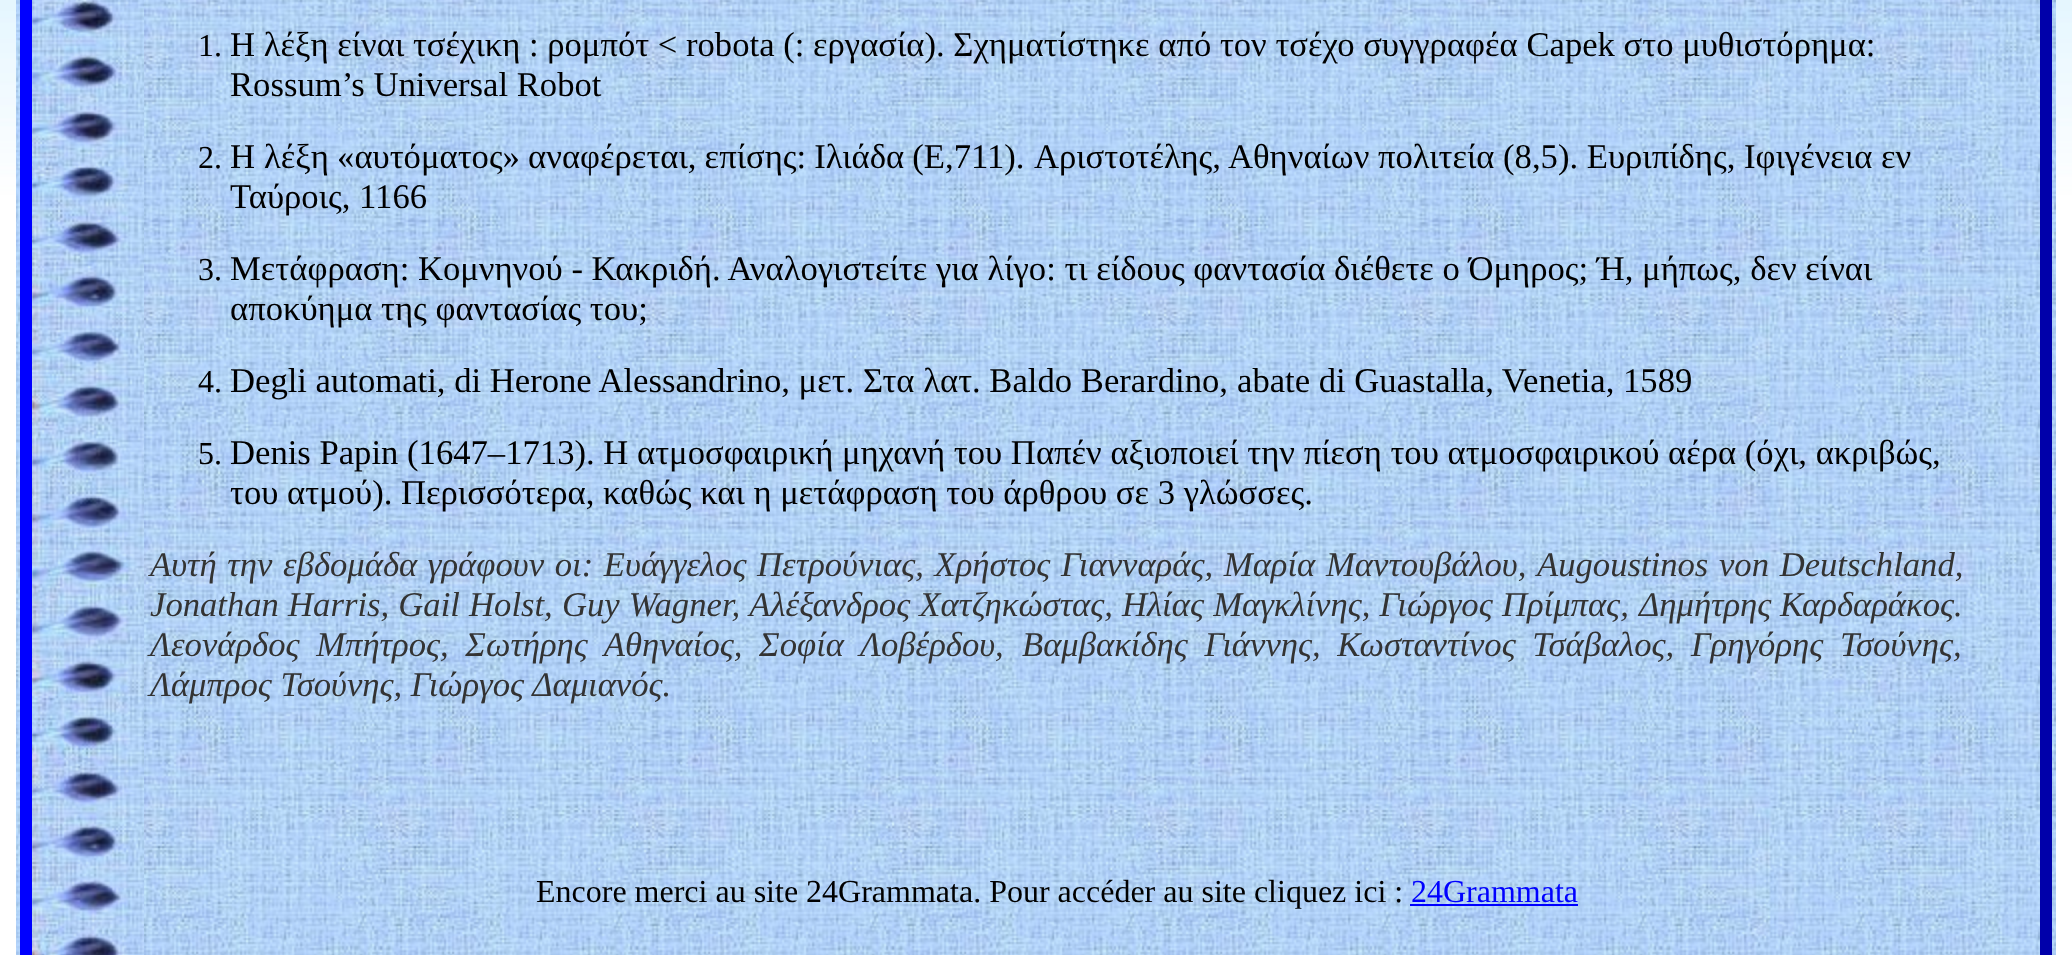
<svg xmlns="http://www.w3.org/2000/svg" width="2072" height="955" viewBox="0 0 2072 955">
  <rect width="100%" height="100%" fill="rgb(255,255,255)"/>
  <image x="0" y="0" width="2072" height="955" href="pic1.png"/>
  <image x="16" y="0" width="2040" height="955" href="pic2.png"/>
  <image x="32" y="0" width="112" height="955" href="pic3.png"/>
  <path d="M20 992V-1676L32-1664V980Z" fill="rgb(0,0,255)"/>
  <text x="198" y="56" font-family="Liberation Serif" font-size="32" fill="rgb(0,0,0)">1.</text>
  <g font-family="Liberation Serif" font-size="34.65" fill="rgb(0,0,0)">
    <text>
      <tspan x="230" y="56">Η λέξη είναι τσέχικη : ρομπότ &lt; robota (: εργασία). Σχηματίστηκε από τον τσέχο συγγραφέα Capek στο μυθιστόρημα:</tspan>
      <tspan x="230" y="96">Rossum’s Universal Robot</tspan>
    </text>
  </g>
  <text x="198" y="168" font-family="Liberation Serif" font-size="32" fill="rgb(0,0,0)">2.</text>
  <g font-family="Liberation Serif" font-size="34.65" fill="rgb(0,0,0)">
    <text x="230" y="168">Η</text>
    <text x="264" y="168" word-spacing="-0.5">λέξη «αυτόματος» αναφέρεται, επίσης: Ιλιάδα (Ε,711).</text>
    <text x="1034" y="168">Αριστοτέλης,</text>
    <text x="1228" y="168">Αθηναίων πολιτεία (8,5). Ευριπίδης, Ιφιγένεια εν</text>
    <text x="230" y="208">Ταύροις, 1166</text>
  </g>
  <text x="198" y="280" font-family="Liberation Serif" font-size="32" fill="rgb(0,0,0)">3.</text>
  <g font-family="Liberation Serif" font-size="34.65" fill="rgb(0,0,0)">
    <text>
      <tspan x="230" y="280">Μετάφραση: Κομνηνού - Κακριδή. Αναλογιστείτε για λίγο: τι είδους φαντασία διέθετε ο Όμηρος; Ή, μήπως, δεν είναι</tspan>
      <tspan x="230" y="320">αποκύημα της φαντασίας του;</tspan>
    </text>
  </g>
  <text x="198" y="392" font-family="Liberation Serif" font-size="32" fill="rgb(0,0,0)">4.</text>
  <g font-family="Liberation Serif" font-size="34.65" fill="rgb(0,0,0)">
    <text x="230" y="392">Degli automati, di Herone Alessandrino, μετ. Στα λατ. Baldo Berardino,</text>
    <text x="1237" y="392">abate di Guastalla, Venetia, 1589</text>
  </g>
  <text x="198" y="464" font-family="Liberation Serif" font-size="32" fill="rgb(0,0,0)">5.</text>
  <g font-family="Liberation Serif" font-size="34.65" fill="rgb(0,0,0)">
    <text>
      <tspan x="230" y="464">Denis Papin (1647–1713). H ατμοσφαιρική μηχανή του Παπέν αξιοποιεί την πίεση του ατμοσφαιρικού αέρα (όχι, ακριβώς,</tspan>
      <tspan x="230" y="504">του ατμού). Περισσότερα, καθώς και η μετάφραση του άρθρου σε 3 γλώσσες.</tspan>
    </text>
  </g>
  <g font-family="Liberation Serif" font-size="34.65" font-style="italic" fill="rgb(51,51,51)">
    <text x="150" y="576" word-spacing="2">Αυτή την</text>
    <text x="283" y="576" word-spacing="2">εβδομάδα γράφουν οι: Ευάγγελος Πετρούνιας, Χρήστος Γιανναράς, Μαρία</text>
    <text x="1326" y="576" word-spacing="2">Μαντουβάλου, Augoustinos von Deutschland,</text>
    <text x="150" y="616" word-spacing="0.5">Jonathan Harris, Gail Holst,</text>
    <text x="562" y="616" word-spacing="0.5">Guy Wagner, Αλέξανδρος Χατζηκώστας, Ηλίας Μαγκλίνης, Γιώργος Πρίμπας,</text>
    <text x="1639" y="616">Δημήτρης Καρδαράκος.</text>
    <text x="150" y="656" word-spacing="8">Λεονάρδος Μπήτρος, Σωτήρης Αθηναίος, Σοφία Λοβέρδου,</text>
    <text x="1022" y="656" word-spacing="8">Βαμβακίδης Γιάννης, Κωσταντίνος Τσάβαλος, Γρηγόρης Τσούνης,</text>
    <text x="150" y="696">Λάμπρος Τσούνης, Γιώργος Δαμιανός.</text>
  </g>
  <text x="536" y="902" font-family="Liberation Serif" font-size="32" fill="rgb(0,0,0)">Encore merci au site 24Grammata. Pour accéder au site cliquez ici :</text>
  <text x="1411" y="902" font-family="Liberation Serif" font-size="32" fill="rgb(0,0,255)">24Grammata</text>
  <rect x="1410" y="904" width="168" height="2" fill="rgb(0,0,255)"/>
  <path d="M2052-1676V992L2040 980V-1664Z" fill="rgb(0,0,170)"/>
</svg>
